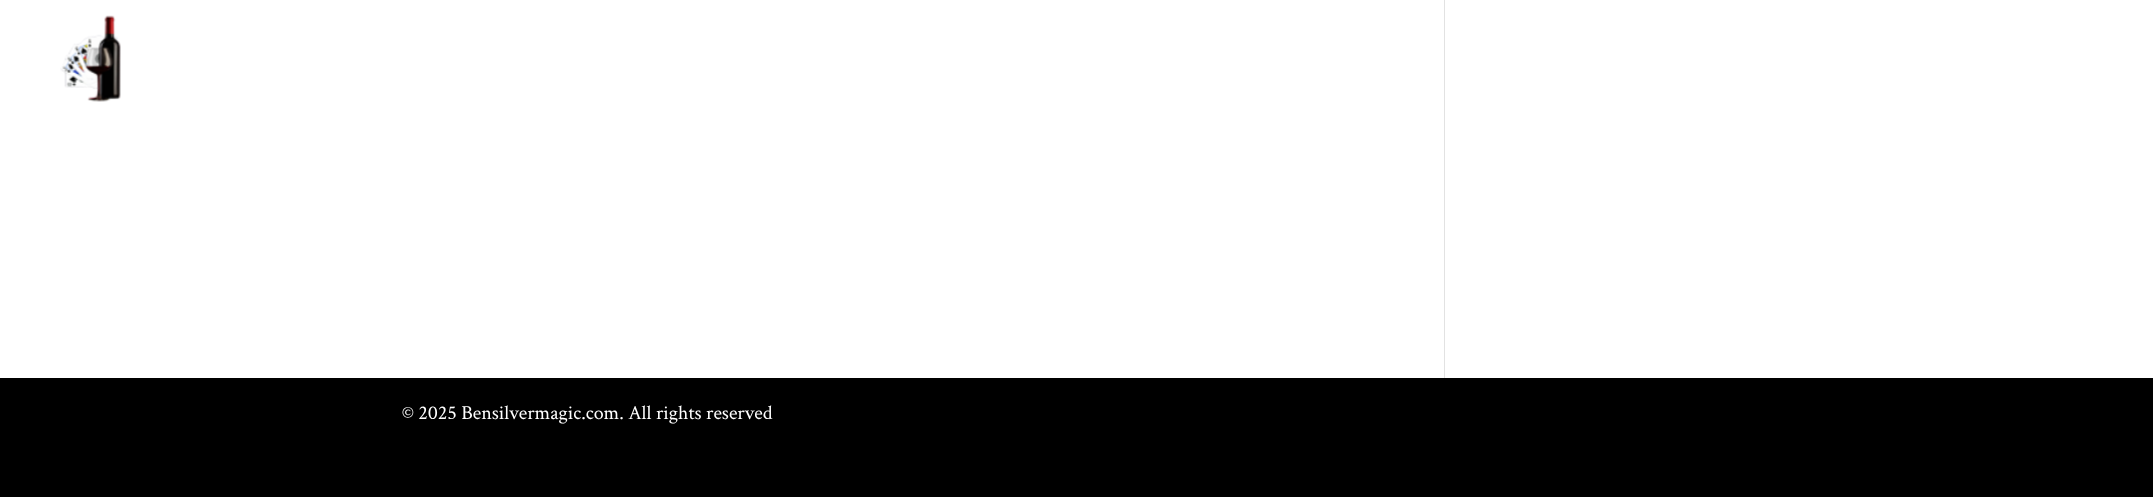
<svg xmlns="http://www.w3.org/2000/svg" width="2153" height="497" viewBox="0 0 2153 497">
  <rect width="100%" height="100%" fill="rgb(0,0,0)"/>
  <rect x="0" y="0" width="2153" height="378" fill="rgb(255,255,255)"/>
  <image x="60" y="15" width="61" height="87" href="pic1.png"/>
  <rect x="1444" y="0" width="1" height="378" fill="rgb(226,226,226)"/>
  <text x="402" y="419" font-family="Crimson Text" font-size="20" fill="rgb(255,255,255)">© 2025 Bensilvermagic.com. All rights reserved</text>
</svg>
